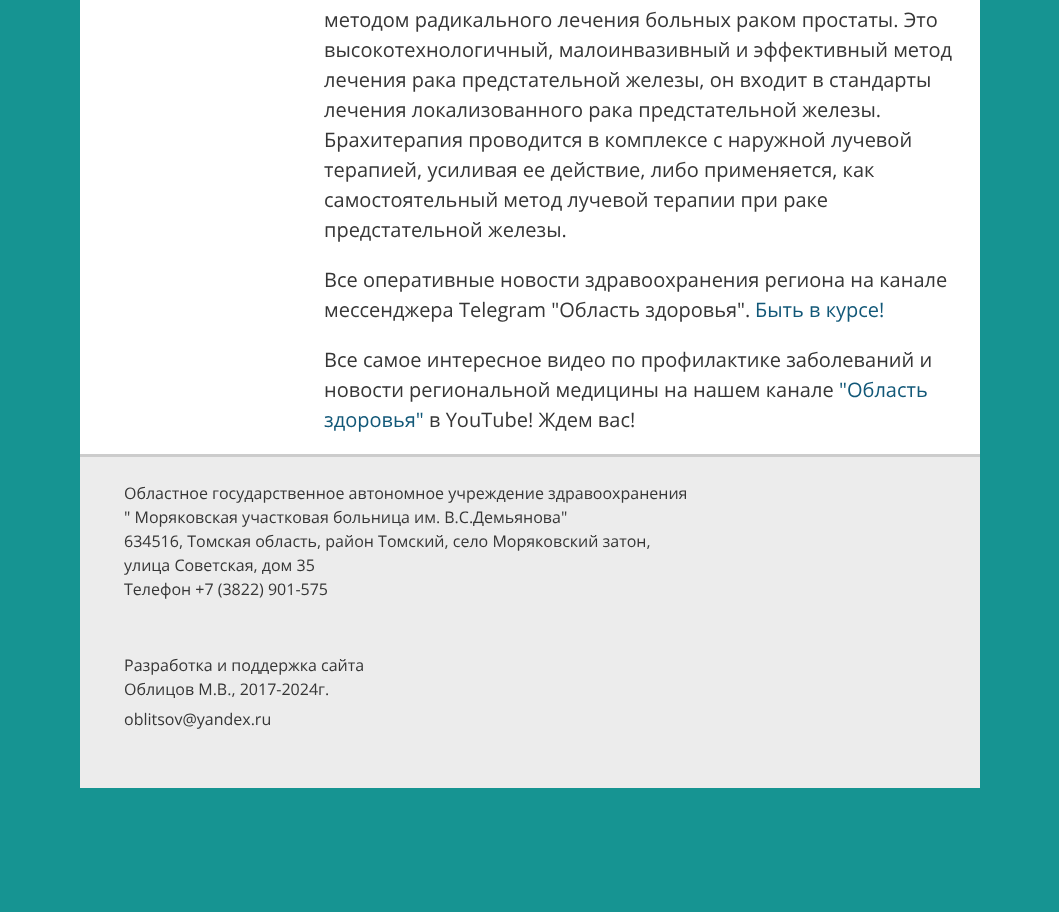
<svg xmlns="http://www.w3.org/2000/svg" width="1059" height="912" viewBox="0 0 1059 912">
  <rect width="100%" height="100%" fill="rgb(22,148,146)"/>
  <rect x="80" y="0" width="900" height="454" fill="rgb(255,255,255)"/>
  <g font-family="Open Sans" font-size="20" fill="rgb(54,54,54)">
    <text>
      <tspan x="324" y="27">методом радикального лечения больных раком простаты. Это</tspan>
      <tspan x="324" y="57">высокотехнологичный, малоинвазивный и эффективный метод</tspan>
      <tspan x="324" y="87">лечения рака предстательной железы, он входит в стандарты</tspan>
      <tspan x="324" y="117">лечения локализованного рака предстательной железы.</tspan>
      <tspan x="324" y="147">Брахитерапия проводится в комплексе с наружной лучевой</tspan>
      <tspan x="324" y="177">терапией, усиливая ее действие, либо применяется, как</tspan>
      <tspan x="324" y="207">самостоятельный метод лучевой терапии при раке</tspan>
      <tspan x="324" y="237">предстательной железы.</tspan>
    </text>
    <text>
      <tspan x="324" y="287">Все оперативные новости здравоохранения региона на канале</tspan>
      <tspan x="324" y="317">мессенджера Telegram "Область здоровья".</tspan>
    </text>
  </g>
  <text x="755" y="317" font-family="Open Sans" font-size="20" fill="rgb(18,88,120)">Быть в курсе!</text>
  <g font-family="Open Sans" font-size="20" fill="rgb(54,54,54)">
    <text>
      <tspan x="324" y="367">Все самое интересное видео по профилактике заболеваний и</tspan>
      <tspan x="324" y="397">новости региональной медицины на нашем канале</tspan>
    </text>
  </g>
  <g font-family="Open Sans" font-size="20" fill="rgb(18,88,120)">
    <text x="839" y="397">"Область</text>
    <text x="324" y="427">здоровья"</text>
  </g>
  <text x="429" y="427" font-family="Open Sans" font-size="20" fill="rgb(54,54,54)">в YouTube! Ждем вас!</text>
  <rect x="80" y="457" width="900" height="331" fill="rgb(236,236,236)"/>
  <rect x="80" y="454" width="900" height="3" fill="rgb(204,204,204)"/>
  <g font-family="Open Sans" font-size="16" fill="rgb(54,54,54)">
    <text>
      <tspan x="124" y="499">Областное государственное автономное учреждение здравоохранения</tspan>
      <tspan x="124" y="523">" Моряковская участковая больница им. В.С.Демьянова"</tspan>
      <tspan x="124" y="547">634516, Томская область, район Томский, село Моряковский затон,</tspan>
      <tspan x="124" y="571">улица Советская, дом 35</tspan>
      <tspan x="124" y="595">Телефон +7 (3822) 901-575</tspan>
    </text>
    <text>
      <tspan x="124" y="671">Разработка и поддержка сайта</tspan>
      <tspan x="124" y="695">Облицов М.В., 2017-2024г.</tspan>
      <tspan x="124" y="725">oblitsov@yandex.ru</tspan>
    </text>
  </g>
</svg>
